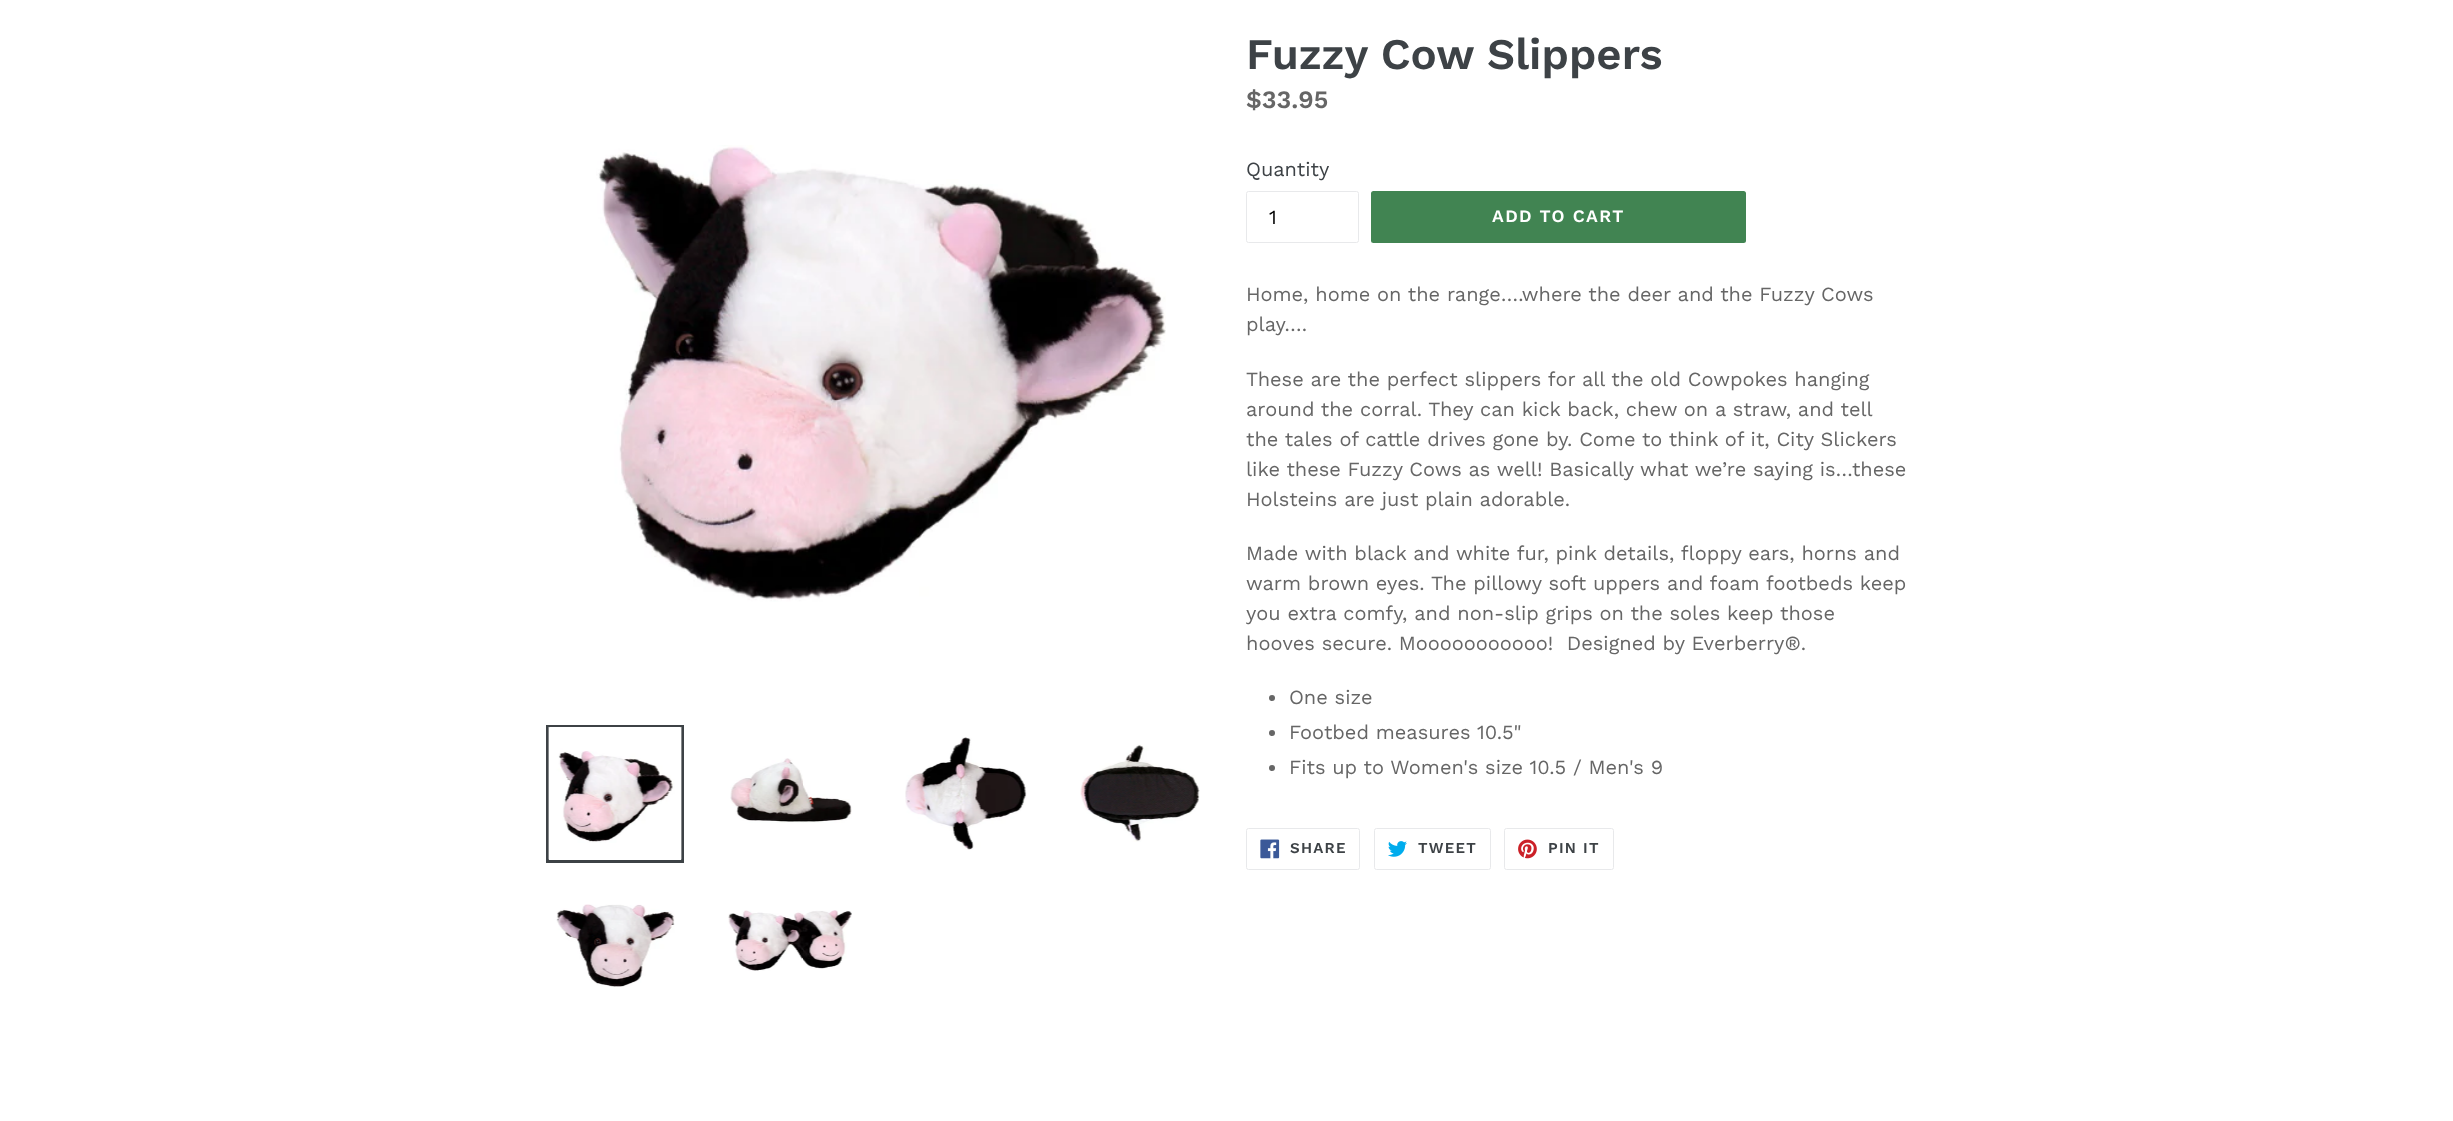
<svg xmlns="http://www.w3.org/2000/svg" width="2453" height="1121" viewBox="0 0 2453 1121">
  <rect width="100%" height="100%" fill="rgb(255,255,255)"/>
  <image x="596" y="145" width="570" height="457" href="pic1.png"/>
  <rect x="547.5" y="726.5" width="135" height="135" fill="none" stroke="rgb(61,66,70)" stroke-width="3"/>
  <image x="548" y="727" width="134" height="133" href="pic2.png"/>
  <image x="730" y="758" width="122" height="65" href="pic3.png"/>
  <image x="905" y="737" width="122" height="113" href="pic4.png"/>
  <image x="1080" y="744" width="120" height="98" href="pic5.png"/>
  <image x="556" y="904" width="119" height="83" href="pic6.png"/>
  <image x="728" y="910" width="124" height="61" href="pic7.png"/>
  <text x="1246" y="69" font-family="Work Sans" font-size="43.75" font-weight="600" fill="rgb(61,66,70)">Fuzzy Cow Slippers</text>
  <text x="1246" y="108" font-family="Work Sans" font-size="25" font-weight="600" fill="rgb(102,102,102)">$33.95</text>
  <text x="1246" y="176" font-family="Work Sans" font-size="20" fill="rgb(61,66,70)">Quantity</text>
  <rect x="1246.5" y="191.5" width="112" height="51" rx="2" fill="none" stroke="rgb(232,233,235)"/>
  <text x="1269" y="224" font-family="Work Sans" font-size="20" fill="rgb(0,0,0)">1</text>
  <rect x="1371" y="191" width="375" height="52" rx="2.5" fill="rgb(65,132,82)"/>
  <text x="1492" y="222" font-family="Work Sans" font-size="17.5" font-weight="600" letter-spacing="1.4" fill="rgb(255,255,255)">ADD TO CART</text>
  <g font-family="Work Sans" font-size="20" fill="rgb(102,102,102)">
    <text>
      <tspan x="1246" y="301">Home, home on the range….where the deer and the Fuzzy Cows</tspan>
      <tspan x="1246" y="331">play….</tspan>
    </text>
    <text>
      <tspan x="1246" y="386">These are the perfect slippers for all the old Cowpokes hanging</tspan>
      <tspan x="1246" y="416">around the corral. They can kick back, chew on a straw, and tell</tspan>
      <tspan x="1246" y="446">the tales of cattle drives gone by. Come to think of it, City Slickers</tspan>
      <tspan x="1246" y="476">like these Fuzzy Cows as well! Basically what we’re saying is…these</tspan>
      <tspan x="1246" y="506">Holsteins are just plain adorable.</tspan>
    </text>
    <text xml:space="preserve"><tspan x="1246" y="560">Made with black and white fur, pink details, floppy ears, horns and</tspan><tspan x="1246" y="590">warm brown eyes. The pillowy soft uppers and foam footbeds keep</tspan><tspan x="1246" y="620">you extra comfy, and non-slip grips on the soles keep those</tspan><tspan x="1246" y="650">hooves secure. Mooooooooooo!  Designed by Everberry®.</tspan></text>
  </g>
  <circle cx="1272" cy="698" r="3" fill="rgb(102,102,102)"/>
  <text x="1289" y="704" font-family="Work Sans" font-size="20" fill="rgb(102,102,102)">One size</text>
  <circle cx="1272" cy="733" r="3" fill="rgb(102,102,102)"/>
  <text x="1289" y="739" font-family="Work Sans" font-size="20" fill="rgb(102,102,102)">Footbed measures 10.5"</text>
  <circle cx="1272" cy="768" r="3" fill="rgb(102,102,102)"/>
  <text x="1289" y="774" font-family="Work Sans" font-size="20" fill="rgb(102,102,102)">Fits up to Women's size 10.5 / Men's 9</text>
  <rect x="1246.5" y="828.5" width="113" height="41" rx="2" fill="none" stroke="rgb(232,233,235)"/>
  <image x="1260" y="839" width="20" height="20" href="pic8.png"/>
  <text x="1290" y="853" font-family="Work Sans" font-size="15" font-weight="600" letter-spacing="1.25" fill="rgb(61,66,70)">SHARE</text>
  <rect x="1374.5" y="828.5" width="116" height="41" rx="2" fill="none" stroke="rgb(232,233,235)"/>
  <image x="1388" y="841" width="19" height="16" href="pic9.png"/>
  <text x="1418" y="853" font-family="Work Sans" font-size="15" font-weight="600" letter-spacing="1.25" fill="rgb(61,66,70)">TWEET</text>
  <rect x="1504.5" y="828.5" width="109" height="41" rx="2" fill="none" stroke="rgb(232,233,235)"/>
  <image x="1518" y="839" width="19" height="20" href="pic10.png"/>
  <text x="1548" y="853" font-family="Work Sans" font-size="15" font-weight="600" letter-spacing="1.25" fill="rgb(61,66,70)">PIN IT</text>
</svg>
